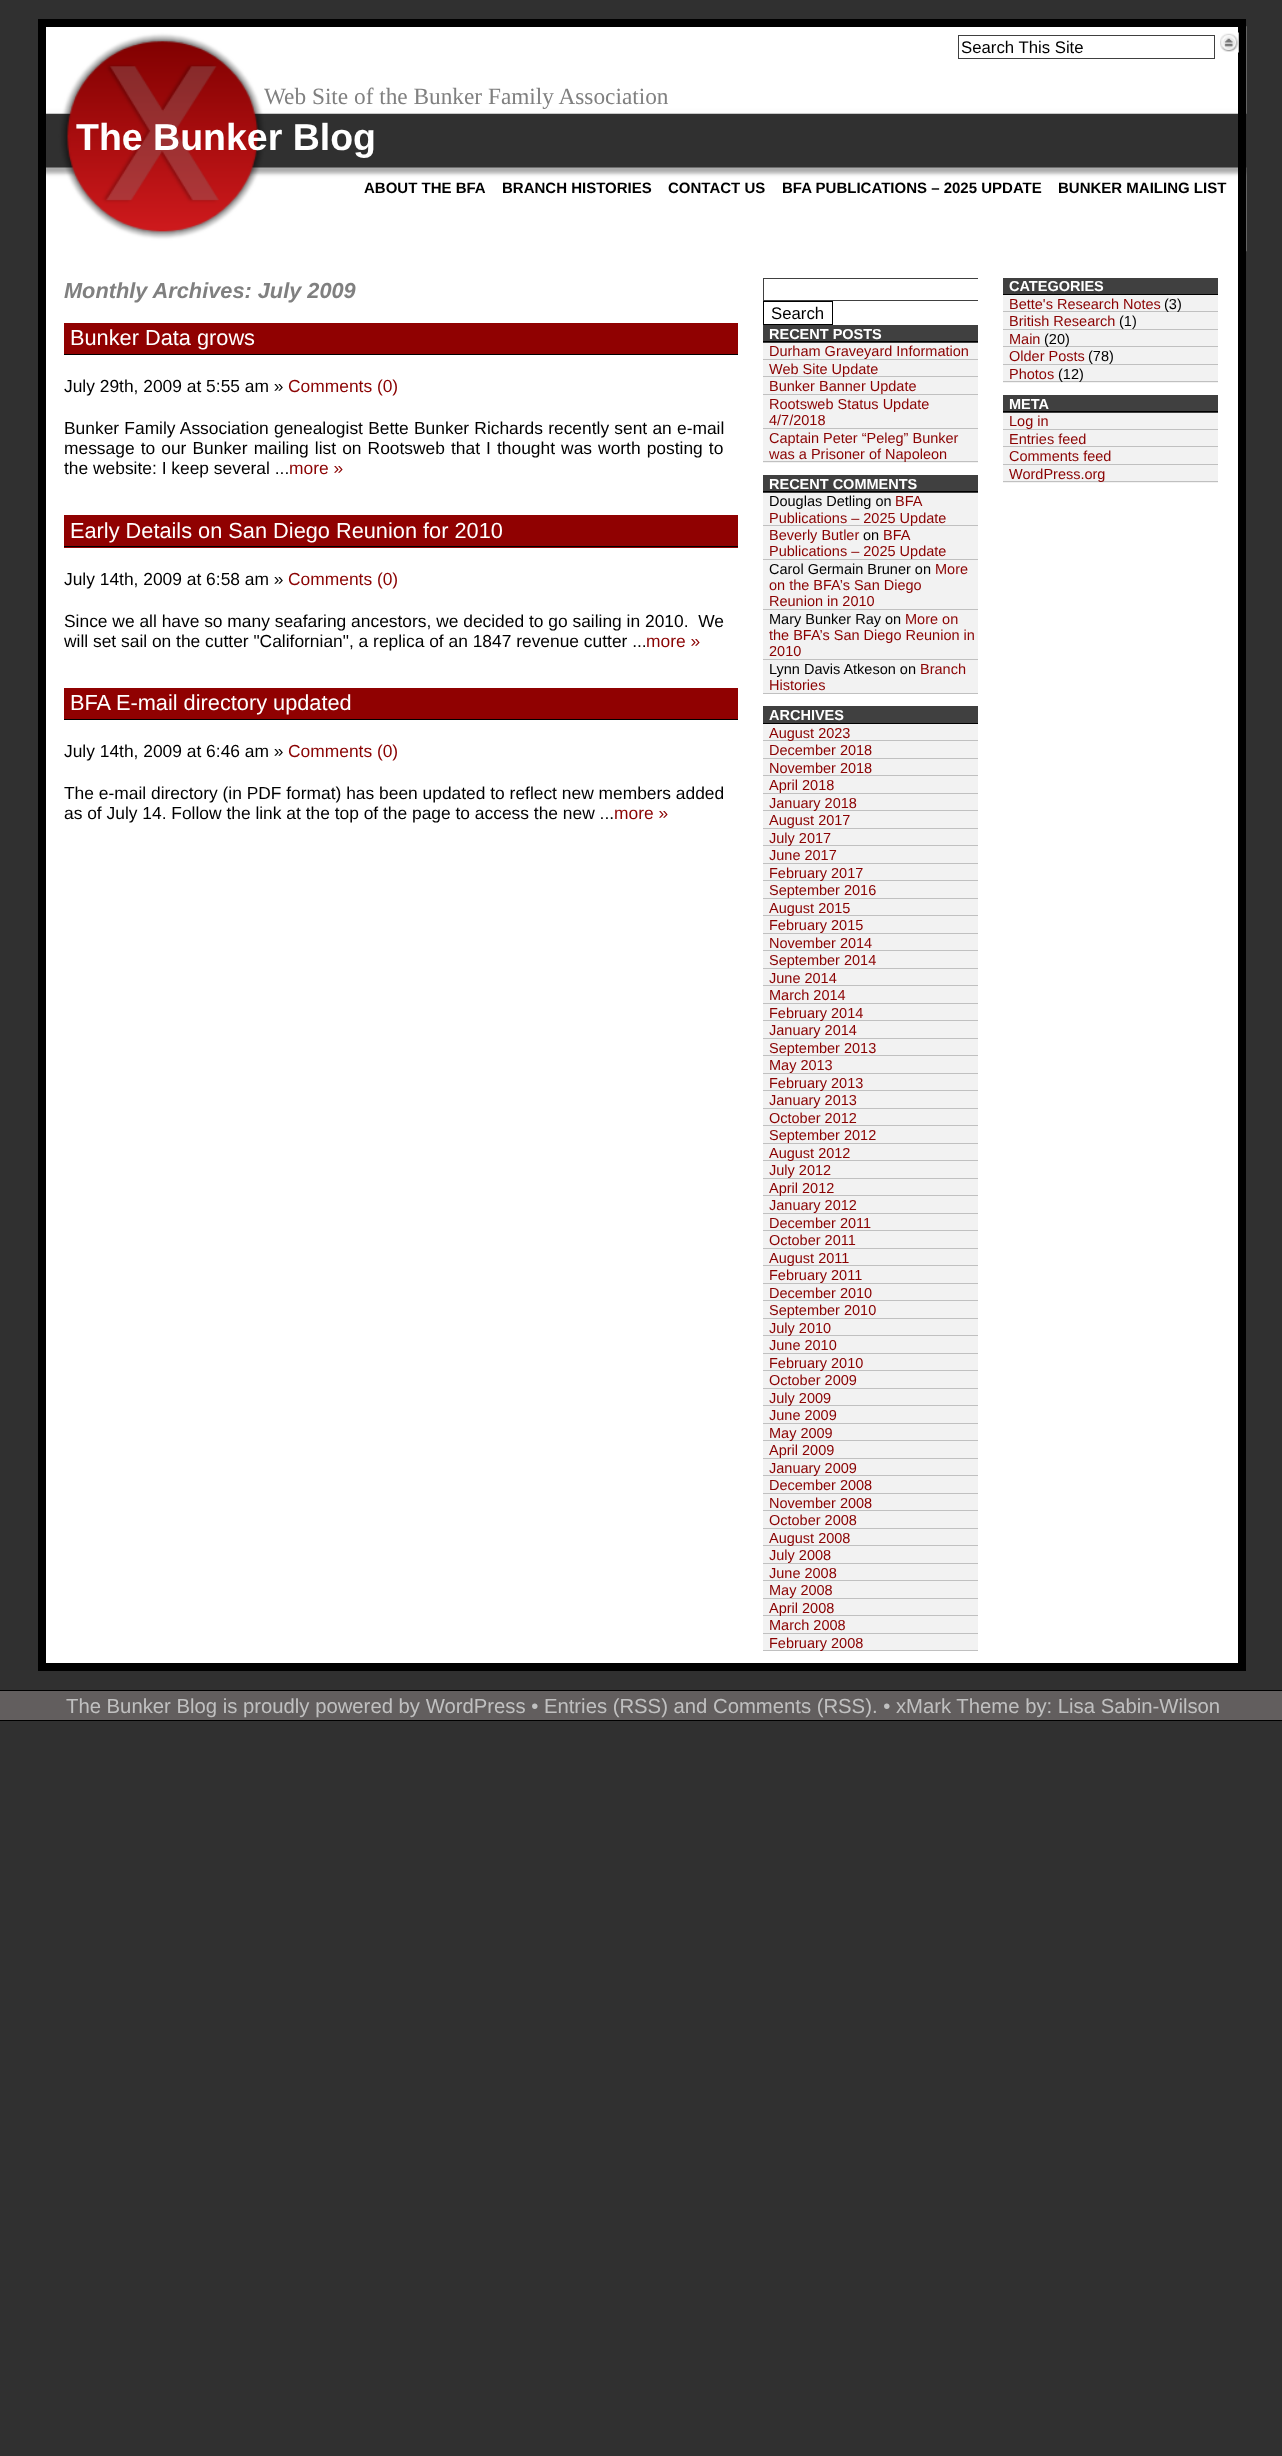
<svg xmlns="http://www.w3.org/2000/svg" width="1282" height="2456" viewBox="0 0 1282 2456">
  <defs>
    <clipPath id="clip1"><rect x="738" y="278" width="240" height="1386"/></clipPath>
  </defs>
  <rect width="100%" height="100%" fill="rgb(48,48,48)"/>
  <rect x="46" y="251" width="1192" height="1412" fill="rgb(255,255,255)"/>
  <image x="46" y="26" width="1201" height="226" href="pic1.png"/>
  <rect x="42" y="23" width="1200" height="1644" fill="none" stroke="rgb(0,0,0)" stroke-width="8"/>
  <rect x="958.5" y="35.5" width="256" height="23" fill="none" stroke="rgb(64,64,64)"/>
  <text x="961" y="53" font-family="Liberation Sans" font-size="16.75" fill="rgb(0,0,0)">Search This Site</text>
  <image x="1220" y="32" width="19" height="21" href="pic2.png"/>
  <text x="264" y="104" font-family="Liberation Serif" font-size="23.3" fill="rgb(128,128,128)">Web Site of the Bunker Family Association</text>
  <text x="76" y="150" font-family="Liberation Sans" font-size="37.5" font-weight="bold" fill="rgb(255,255,255)">The Bunker Blog</text>
  <g font-family="Liberation Sans" font-size="15" font-weight="bold" fill="rgb(0,0,0)">
    <text x="364" y="193">ABOUT THE BFA</text>
    <text x="502" y="193">BRANCH HISTORIES</text>
    <text x="668" y="193">CONTACT US</text>
    <text x="782" y="193">BFA PUBLICATIONS – 2025 UPDATE</text>
    <text x="1058" y="193">BUNKER MAILING LIST</text>
  </g>
  <text x="64" y="298" font-family="Liberation Sans" font-size="21.75" font-weight="bold" font-style="italic" fill="rgb(128,128,128)">Monthly Archives: July 2009</text>
  <rect x="64" y="323" width="674" height="31" fill="rgb(144,1,1)"/>
  <rect x="64" y="354" width="674" height="1" fill="rgb(0,0,0)"/>
  <text x="70" y="345" font-family="Liberation Sans" font-size="21.75" fill="rgb(255,255,255)">Bunker Data grows</text>
  <text x="64" y="392" font-family="Liberation Sans" font-size="17.4" fill="rgb(0,0,0)">July 29th, 2009 at 5:55 am »</text>
  <text x="288" y="392" font-family="Liberation Sans" font-size="17.4" fill="rgb(138,2,2)">Comments (0)</text>
  <g font-family="Liberation Sans" font-size="17.4" fill="rgb(0,0,0)">
    <text>
      <tspan x="64" y="434" word-spacing="0.4">Bunker Family Association genealogist Bette Bunker Richards recently sent an e-mail</tspan>
      <tspan x="64" y="454" word-spacing="1.25">message to our Bunker mailing list on Rootsweb that I thought was worth posting to</tspan>
      <tspan x="64" y="474">the website: I keep several ...</tspan>
    </text>
  </g>
  <text x="289" y="474" font-family="Liberation Sans" font-size="17.4" fill="rgb(138,2,2)">more »</text>
  <rect x="64" y="515" width="674" height="33" fill="rgb(144,1,1)"/>
  <rect x="64" y="546" width="674" height="1" fill="rgb(0,0,0)"/>
  <text x="70" y="538" font-family="Liberation Sans" font-size="21.75" fill="rgb(255,255,255)">Early Details on San Diego Reunion for 2010</text>
  <text x="64" y="585" font-family="Liberation Sans" font-size="17.4" fill="rgb(0,0,0)">July 14th, 2009 at 6:58 am »</text>
  <text x="288" y="585" font-family="Liberation Sans" font-size="17.4" fill="rgb(138,2,2)">Comments (0)</text>
  <g font-family="Liberation Sans" font-size="17.4" fill="rgb(0,0,0)">
    <text xml:space="preserve"><tspan x="64" y="627">Since we all have so many seafaring ancestors, we decided to go sailing in 2010.  We</tspan><tspan x="64" y="647">will set sail on the cutter "Californian", a replica of an 1847 revenue cutter ...</tspan></text>
  </g>
  <text x="646" y="647" font-family="Liberation Sans" font-size="17.4" fill="rgb(138,2,2)">more »</text>
  <rect x="64" y="688" width="674" height="31" fill="rgb(144,1,1)"/>
  <rect x="64" y="719" width="674" height="1" fill="rgb(0,0,0)"/>
  <text x="70" y="710" font-family="Liberation Sans" font-size="21.75" fill="rgb(255,255,255)">BFA E-mail directory updated</text>
  <text x="64" y="757" font-family="Liberation Sans" font-size="17.4" fill="rgb(0,0,0)">July 14th, 2009 at 6:46 am »</text>
  <text x="288" y="757" font-family="Liberation Sans" font-size="17.4" fill="rgb(138,2,2)">Comments (0)</text>
  <g font-family="Liberation Sans" font-size="17.4" fill="rgb(0,0,0)">
    <text>
      <tspan x="64" y="799">The e-mail directory (in PDF format) has been updated to reflect new members added</tspan>
      <tspan x="64" y="819">as of July 14. Follow the link at the top of the page to access the new ...</tspan>
    </text>
  </g>
  <text x="614" y="819" font-family="Liberation Sans" font-size="17.4" fill="rgb(138,2,2)">more »</text>
  <g clip-path="url(#clip1)">
    <rect x="763.5" y="278.5" width="256" height="22" fill="none" stroke="rgb(64,64,64)"/>
  </g>
  <rect x="763.5" y="301.5" width="69" height="23" fill="none" stroke="rgb(0,0,0)"/>
  <text x="771" y="319" font-family="Liberation Sans" font-size="16.75" fill="rgb(0,0,0)">Search</text>
  <rect x="763" y="325" width="215" height="18" fill="rgb(64,64,64)"/>
  <rect x="763" y="341" width="215" height="1" fill="rgb(0,0,0)"/>
  <text x="769" y="339" font-family="Liberation Sans" font-size="14.5" font-weight="bold" fill="rgb(255,255,255)">RECENT POSTS</text>
  <rect x="763" y="343" width="215" height="120" fill="rgb(242,242,242)"/>
  <rect x="763" y="359" width="215" height="1" fill="rgb(192,192,192)"/>
  <text x="769" y="356" font-family="Liberation Sans" font-size="14.5" fill="rgb(138,2,2)">Durham Graveyard Information</text>
  <rect x="763" y="376" width="215" height="1" fill="rgb(192,192,192)"/>
  <text x="769" y="374" font-family="Liberation Sans" font-size="14.5" fill="rgb(138,2,2)">Web Site Update</text>
  <rect x="763" y="394" width="215" height="1" fill="rgb(192,192,192)"/>
  <text x="769" y="391" font-family="Liberation Sans" font-size="14.5" fill="rgb(138,2,2)">Bunker Banner Update</text>
  <rect x="763" y="428" width="215" height="1" fill="rgb(192,192,192)"/>
  <g font-family="Liberation Sans" font-size="14.5" fill="rgb(138,2,2)">
    <text>
      <tspan x="769" y="409">Rootsweb Status Update</tspan>
      <tspan x="769" y="425">4/7/2018</tspan>
    </text>
  </g>
  <rect x="763" y="461" width="215" height="1" fill="rgb(192,192,192)"/>
  <g font-family="Liberation Sans" font-size="14.5" fill="rgb(138,2,2)">
    <text>
      <tspan x="769" y="443">Captain Peter “Peleg” Bunker</tspan>
      <tspan x="769" y="459">was a Prisoner of Napoleon</tspan>
    </text>
  </g>
  <rect x="763" y="475" width="215" height="18" fill="rgb(64,64,64)"/>
  <rect x="763" y="491" width="215" height="1" fill="rgb(0,0,0)"/>
  <text x="769" y="489" font-family="Liberation Sans" font-size="14.5" font-weight="bold" fill="rgb(255,255,255)">RECENT COMMENTS</text>
  <rect x="763" y="493" width="215" height="200" fill="rgb(242,242,242)"/>
  <rect x="763" y="525" width="215" height="1" fill="rgb(192,192,192)"/>
  <text x="769" y="506" font-family="Liberation Sans" font-size="14.5" fill="rgb(0,0,0)">Douglas Detling on</text>
  <g font-family="Liberation Sans" font-size="14.5" fill="rgb(138,2,2)">
    <text x="895" y="506">BFA</text>
    <text x="769" y="523">Publications – 2025 Update</text>
  </g>
  <rect x="763" y="559" width="215" height="1" fill="rgb(192,192,192)"/>
  <text x="769" y="540" font-family="Liberation Sans" font-size="14.5" fill="rgb(138,2,2)">Beverly Butler</text>
  <text x="863" y="540" font-family="Liberation Sans" font-size="14.5" fill="rgb(0,0,0)">on</text>
  <g font-family="Liberation Sans" font-size="14.5" fill="rgb(138,2,2)">
    <text x="883" y="540">BFA</text>
    <text x="769" y="556">Publications – 2025 Update</text>
  </g>
  <rect x="763" y="609" width="215" height="1" fill="rgb(192,192,192)"/>
  <text x="769" y="574" font-family="Liberation Sans" font-size="14.5" fill="rgb(0,0,0)">Carol Germain Bruner on</text>
  <g font-family="Liberation Sans" font-size="14.5" fill="rgb(138,2,2)">
    <text x="935" y="574">More</text>
    <text>
      <tspan x="769" y="590">on the BFA’s San Diego</tspan>
      <tspan x="769" y="606">Reunion in 2010</tspan>
    </text>
  </g>
  <rect x="763" y="659" width="215" height="1" fill="rgb(192,192,192)"/>
  <text x="769" y="624" font-family="Liberation Sans" font-size="14.5" fill="rgb(0,0,0)">Mary Bunker Ray on</text>
  <g font-family="Liberation Sans" font-size="14.5" fill="rgb(138,2,2)">
    <text x="905" y="624">More on</text>
    <text>
      <tspan x="769" y="640">the BFA’s San Diego Reunion in</tspan>
      <tspan x="769" y="656">2010</tspan>
    </text>
  </g>
  <rect x="763" y="693" width="215" height="1" fill="rgb(192,192,192)"/>
  <text x="769" y="674" font-family="Liberation Sans" font-size="14.5" fill="rgb(0,0,0)">Lynn Davis Atkeson on</text>
  <g font-family="Liberation Sans" font-size="14.5" fill="rgb(138,2,2)">
    <text x="920" y="674">Branch</text>
    <text x="769" y="690">Histories</text>
  </g>
  <rect x="763" y="706" width="215" height="17" fill="rgb(64,64,64)"/>
  <rect x="763" y="723" width="215" height="1" fill="rgb(0,0,0)"/>
  <text x="769" y="720" font-family="Liberation Sans" font-size="14.5" font-weight="bold" fill="rgb(255,255,255)">ARCHIVES</text>
  <rect x="763" y="724" width="215" height="926" fill="rgb(242,242,242)"/>
  <rect x="763" y="740" width="215" height="1" fill="rgb(192,192,192)"/>
  <text x="769" y="738" font-family="Liberation Sans" font-size="14.5" fill="rgb(138,2,2)">August 2023</text>
  <rect x="763" y="758" width="215" height="1" fill="rgb(192,192,192)"/>
  <text x="769" y="755" font-family="Liberation Sans" font-size="14.5" fill="rgb(138,2,2)">December 2018</text>
  <rect x="763" y="775" width="215" height="1" fill="rgb(192,192,192)"/>
  <text x="769" y="773" font-family="Liberation Sans" font-size="14.5" fill="rgb(138,2,2)">November 2018</text>
  <rect x="763" y="793" width="215" height="1" fill="rgb(192,192,192)"/>
  <text x="769" y="790" font-family="Liberation Sans" font-size="14.5" fill="rgb(138,2,2)">April 2018</text>
  <rect x="763" y="810" width="215" height="1" fill="rgb(192,192,192)"/>
  <text x="769" y="808" font-family="Liberation Sans" font-size="14.5" fill="rgb(138,2,2)">January 2018</text>
  <rect x="763" y="828" width="215" height="1" fill="rgb(192,192,192)"/>
  <text x="769" y="825" font-family="Liberation Sans" font-size="14.5" fill="rgb(138,2,2)">August 2017</text>
  <rect x="763" y="845" width="215" height="1" fill="rgb(192,192,192)"/>
  <text x="769" y="843" font-family="Liberation Sans" font-size="14.5" fill="rgb(138,2,2)">July 2017</text>
  <rect x="763" y="863" width="215" height="1" fill="rgb(192,192,192)"/>
  <text x="769" y="860" font-family="Liberation Sans" font-size="14.5" fill="rgb(138,2,2)">June 2017</text>
  <rect x="763" y="880" width="215" height="1" fill="rgb(192,192,192)"/>
  <text x="769" y="878" font-family="Liberation Sans" font-size="14.5" fill="rgb(138,2,2)">February 2017</text>
  <rect x="763" y="898" width="215" height="1" fill="rgb(192,192,192)"/>
  <text x="769" y="895" font-family="Liberation Sans" font-size="14.5" fill="rgb(138,2,2)">September 2016</text>
  <rect x="763" y="915" width="215" height="1" fill="rgb(192,192,192)"/>
  <text x="769" y="913" font-family="Liberation Sans" font-size="14.5" fill="rgb(138,2,2)">August 2015</text>
  <rect x="763" y="933" width="215" height="1" fill="rgb(192,192,192)"/>
  <text x="769" y="930" font-family="Liberation Sans" font-size="14.5" fill="rgb(138,2,2)">February 2015</text>
  <rect x="763" y="950" width="215" height="1" fill="rgb(192,192,192)"/>
  <text x="769" y="948" font-family="Liberation Sans" font-size="14.5" fill="rgb(138,2,2)">November 2014</text>
  <rect x="763" y="968" width="215" height="1" fill="rgb(192,192,192)"/>
  <text x="769" y="965" font-family="Liberation Sans" font-size="14.5" fill="rgb(138,2,2)">September 2014</text>
  <rect x="763" y="985" width="215" height="1" fill="rgb(192,192,192)"/>
  <text x="769" y="983" font-family="Liberation Sans" font-size="14.5" fill="rgb(138,2,2)">June 2014</text>
  <rect x="763" y="1003" width="215" height="1" fill="rgb(192,192,192)"/>
  <text x="769" y="1000" font-family="Liberation Sans" font-size="14.5" fill="rgb(138,2,2)">March 2014</text>
  <rect x="763" y="1020" width="215" height="1" fill="rgb(192,192,192)"/>
  <text x="769" y="1018" font-family="Liberation Sans" font-size="14.5" fill="rgb(138,2,2)">February 2014</text>
  <rect x="763" y="1038" width="215" height="1" fill="rgb(192,192,192)"/>
  <text x="769" y="1035" font-family="Liberation Sans" font-size="14.5" fill="rgb(138,2,2)">January 2014</text>
  <rect x="763" y="1055" width="215" height="1" fill="rgb(192,192,192)"/>
  <text x="769" y="1053" font-family="Liberation Sans" font-size="14.5" fill="rgb(138,2,2)">September 2013</text>
  <rect x="763" y="1073" width="215" height="1" fill="rgb(192,192,192)"/>
  <text x="769" y="1070" font-family="Liberation Sans" font-size="14.5" fill="rgb(138,2,2)">May 2013</text>
  <rect x="763" y="1090" width="215" height="1" fill="rgb(192,192,192)"/>
  <text x="769" y="1088" font-family="Liberation Sans" font-size="14.5" fill="rgb(138,2,2)">February 2013</text>
  <rect x="763" y="1108" width="215" height="1" fill="rgb(192,192,192)"/>
  <text x="769" y="1105" font-family="Liberation Sans" font-size="14.5" fill="rgb(138,2,2)">January 2013</text>
  <rect x="763" y="1125" width="215" height="1" fill="rgb(192,192,192)"/>
  <text x="769" y="1123" font-family="Liberation Sans" font-size="14.5" fill="rgb(138,2,2)">October 2012</text>
  <rect x="763" y="1143" width="215" height="1" fill="rgb(192,192,192)"/>
  <text x="769" y="1140" font-family="Liberation Sans" font-size="14.5" fill="rgb(138,2,2)">September 2012</text>
  <rect x="763" y="1160" width="215" height="1" fill="rgb(192,192,192)"/>
  <text x="769" y="1158" font-family="Liberation Sans" font-size="14.5" fill="rgb(138,2,2)">August 2012</text>
  <rect x="763" y="1178" width="215" height="1" fill="rgb(192,192,192)"/>
  <text x="769" y="1175" font-family="Liberation Sans" font-size="14.5" fill="rgb(138,2,2)">July 2012</text>
  <rect x="763" y="1195" width="215" height="1" fill="rgb(192,192,192)"/>
  <text x="769" y="1193" font-family="Liberation Sans" font-size="14.5" fill="rgb(138,2,2)">April 2012</text>
  <rect x="763" y="1213" width="215" height="1" fill="rgb(192,192,192)"/>
  <text x="769" y="1210" font-family="Liberation Sans" font-size="14.5" fill="rgb(138,2,2)">January 2012</text>
  <rect x="763" y="1230" width="215" height="1" fill="rgb(192,192,192)"/>
  <text x="769" y="1228" font-family="Liberation Sans" font-size="14.5" fill="rgb(138,2,2)">December 2011</text>
  <rect x="763" y="1248" width="215" height="1" fill="rgb(192,192,192)"/>
  <text x="769" y="1245" font-family="Liberation Sans" font-size="14.5" fill="rgb(138,2,2)">October 2011</text>
  <rect x="763" y="1265" width="215" height="1" fill="rgb(192,192,192)"/>
  <text x="769" y="1263" font-family="Liberation Sans" font-size="14.5" fill="rgb(138,2,2)">August 2011</text>
  <rect x="763" y="1283" width="215" height="1" fill="rgb(192,192,192)"/>
  <text x="769" y="1280" font-family="Liberation Sans" font-size="14.5" fill="rgb(138,2,2)">February 2011</text>
  <rect x="763" y="1300" width="215" height="1" fill="rgb(192,192,192)"/>
  <text x="769" y="1298" font-family="Liberation Sans" font-size="14.5" fill="rgb(138,2,2)">December 2010</text>
  <rect x="763" y="1318" width="215" height="1" fill="rgb(192,192,192)"/>
  <text x="769" y="1315" font-family="Liberation Sans" font-size="14.5" fill="rgb(138,2,2)">September 2010</text>
  <rect x="763" y="1335" width="215" height="1" fill="rgb(192,192,192)"/>
  <text x="769" y="1333" font-family="Liberation Sans" font-size="14.5" fill="rgb(138,2,2)">July 2010</text>
  <rect x="763" y="1353" width="215" height="1" fill="rgb(192,192,192)"/>
  <text x="769" y="1350" font-family="Liberation Sans" font-size="14.5" fill="rgb(138,2,2)">June 2010</text>
  <rect x="763" y="1370" width="215" height="1" fill="rgb(192,192,192)"/>
  <text x="769" y="1368" font-family="Liberation Sans" font-size="14.5" fill="rgb(138,2,2)">February 2010</text>
  <rect x="763" y="1388" width="215" height="1" fill="rgb(192,192,192)"/>
  <text x="769" y="1385" font-family="Liberation Sans" font-size="14.5" fill="rgb(138,2,2)">October 2009</text>
  <rect x="763" y="1405" width="215" height="1" fill="rgb(192,192,192)"/>
  <text x="769" y="1403" font-family="Liberation Sans" font-size="14.5" fill="rgb(138,2,2)">July 2009</text>
  <rect x="763" y="1423" width="215" height="1" fill="rgb(192,192,192)"/>
  <text x="769" y="1420" font-family="Liberation Sans" font-size="14.5" fill="rgb(138,2,2)">June 2009</text>
  <rect x="763" y="1440" width="215" height="1" fill="rgb(192,192,192)"/>
  <text x="769" y="1438" font-family="Liberation Sans" font-size="14.5" fill="rgb(138,2,2)">May 2009</text>
  <rect x="763" y="1458" width="215" height="1" fill="rgb(192,192,192)"/>
  <text x="769" y="1455" font-family="Liberation Sans" font-size="14.5" fill="rgb(138,2,2)">April 2009</text>
  <rect x="763" y="1475" width="215" height="1" fill="rgb(192,192,192)"/>
  <text x="769" y="1473" font-family="Liberation Sans" font-size="14.5" fill="rgb(138,2,2)">January 2009</text>
  <rect x="763" y="1493" width="215" height="1" fill="rgb(192,192,192)"/>
  <text x="769" y="1490" font-family="Liberation Sans" font-size="14.5" fill="rgb(138,2,2)">December 2008</text>
  <rect x="763" y="1510" width="215" height="1" fill="rgb(192,192,192)"/>
  <text x="769" y="1508" font-family="Liberation Sans" font-size="14.5" fill="rgb(138,2,2)">November 2008</text>
  <rect x="763" y="1528" width="215" height="1" fill="rgb(192,192,192)"/>
  <text x="769" y="1525" font-family="Liberation Sans" font-size="14.5" fill="rgb(138,2,2)">October 2008</text>
  <rect x="763" y="1545" width="215" height="1" fill="rgb(192,192,192)"/>
  <text x="769" y="1543" font-family="Liberation Sans" font-size="14.5" fill="rgb(138,2,2)">August 2008</text>
  <rect x="763" y="1563" width="215" height="1" fill="rgb(192,192,192)"/>
  <text x="769" y="1560" font-family="Liberation Sans" font-size="14.5" fill="rgb(138,2,2)">July 2008</text>
  <rect x="763" y="1580" width="215" height="1" fill="rgb(192,192,192)"/>
  <text x="769" y="1578" font-family="Liberation Sans" font-size="14.5" fill="rgb(138,2,2)">June 2008</text>
  <rect x="763" y="1598" width="215" height="1" fill="rgb(192,192,192)"/>
  <text x="769" y="1595" font-family="Liberation Sans" font-size="14.5" fill="rgb(138,2,2)">May 2008</text>
  <rect x="763" y="1615" width="215" height="1" fill="rgb(192,192,192)"/>
  <text x="769" y="1613" font-family="Liberation Sans" font-size="14.5" fill="rgb(138,2,2)">April 2008</text>
  <rect x="763" y="1633" width="215" height="1" fill="rgb(192,192,192)"/>
  <text x="769" y="1630" font-family="Liberation Sans" font-size="14.5" fill="rgb(138,2,2)">March 2008</text>
  <rect x="763" y="1650" width="215" height="1" fill="rgb(192,192,192)"/>
  <text x="769" y="1648" font-family="Liberation Sans" font-size="14.5" fill="rgb(138,2,2)">February 2008</text>
  <rect x="1003" y="278" width="215" height="16" fill="rgb(64,64,64)"/>
  <rect x="1003" y="294" width="215" height="1" fill="rgb(0,0,0)"/>
  <text x="1009" y="291" font-family="Liberation Sans" font-size="14.5" font-weight="bold" fill="rgb(255,255,255)">CATEGORIES</text>
  <rect x="1003" y="295" width="215" height="88" fill="rgb(242,242,242)"/>
  <rect x="1003" y="311" width="215" height="1" fill="rgb(192,192,192)"/>
  <text x="1009" y="309" font-family="Liberation Sans" font-size="14.5" fill="rgb(138,2,2)">Bette's Research Notes</text>
  <text x="1164" y="309" font-family="Liberation Sans" font-size="14.5" fill="rgb(0,0,0)">(3)</text>
  <rect x="1003" y="329" width="215" height="1" fill="rgb(192,192,192)"/>
  <text x="1009" y="326" font-family="Liberation Sans" font-size="14.5" fill="rgb(138,2,2)">British Research</text>
  <text x="1119" y="326" font-family="Liberation Sans" font-size="14.5" fill="rgb(0,0,0)">(1)</text>
  <rect x="1003" y="346" width="215" height="1" fill="rgb(192,192,192)"/>
  <text x="1009" y="344" font-family="Liberation Sans" font-size="14.5" fill="rgb(138,2,2)">Main</text>
  <text x="1044" y="344" font-family="Liberation Sans" font-size="14.5" fill="rgb(0,0,0)">(20)</text>
  <rect x="1003" y="364" width="215" height="1" fill="rgb(192,192,192)"/>
  <text x="1009" y="361" font-family="Liberation Sans" font-size="14.5" fill="rgb(138,2,2)">Older Posts</text>
  <text x="1088" y="361" font-family="Liberation Sans" font-size="14.5" fill="rgb(0,0,0)">(78)</text>
  <rect x="1003" y="381" width="215" height="1" fill="rgb(192,192,192)"/>
  <text x="1009" y="379" font-family="Liberation Sans" font-size="14.5" fill="rgb(138,2,2)">Photos</text>
  <text x="1058" y="379" font-family="Liberation Sans" font-size="14.5" fill="rgb(0,0,0)">(12)</text>
  <rect x="1003" y="395" width="215" height="18" fill="rgb(64,64,64)"/>
  <rect x="1003" y="411" width="215" height="1" fill="rgb(0,0,0)"/>
  <text x="1009" y="409" font-family="Liberation Sans" font-size="14.5" font-weight="bold" fill="rgb(255,255,255)">META</text>
  <rect x="1003" y="413" width="215" height="70" fill="rgb(242,242,242)"/>
  <rect x="1003" y="429" width="215" height="1" fill="rgb(192,192,192)"/>
  <text x="1009" y="426" font-family="Liberation Sans" font-size="14.5" fill="rgb(138,2,2)">Log in</text>
  <rect x="1003" y="446" width="215" height="1" fill="rgb(192,192,192)"/>
  <text x="1009" y="444" font-family="Liberation Sans" font-size="14.5" fill="rgb(138,2,2)">Entries feed</text>
  <rect x="1003" y="464" width="215" height="1" fill="rgb(192,192,192)"/>
  <text x="1009" y="461" font-family="Liberation Sans" font-size="14.5" fill="rgb(138,2,2)">Comments feed</text>
  <rect x="1003" y="481" width="215" height="1" fill="rgb(192,192,192)"/>
  <text x="1009" y="479" font-family="Liberation Sans" font-size="14.5" fill="rgb(138,2,2)">WordPress.org</text>
  <rect x="0" y="1691" width="1282" height="29" fill="rgb(98,94,94)"/>
  <rect x="0" y="1690" width="1282" height="1" fill="rgb(0,0,0)"/>
  <rect x="0" y="1720" width="1282" height="1" fill="rgb(0,0,0)"/>
  <text x="66" y="1713" font-family="Liberation Sans" font-size="20.3" fill="rgb(192,192,192)">The Bunker Blog is proudly powered by WordPress • Entries (RSS) and Comments (RSS). • xMark Theme by: Lisa Sabin-Wilson</text>
</svg>
